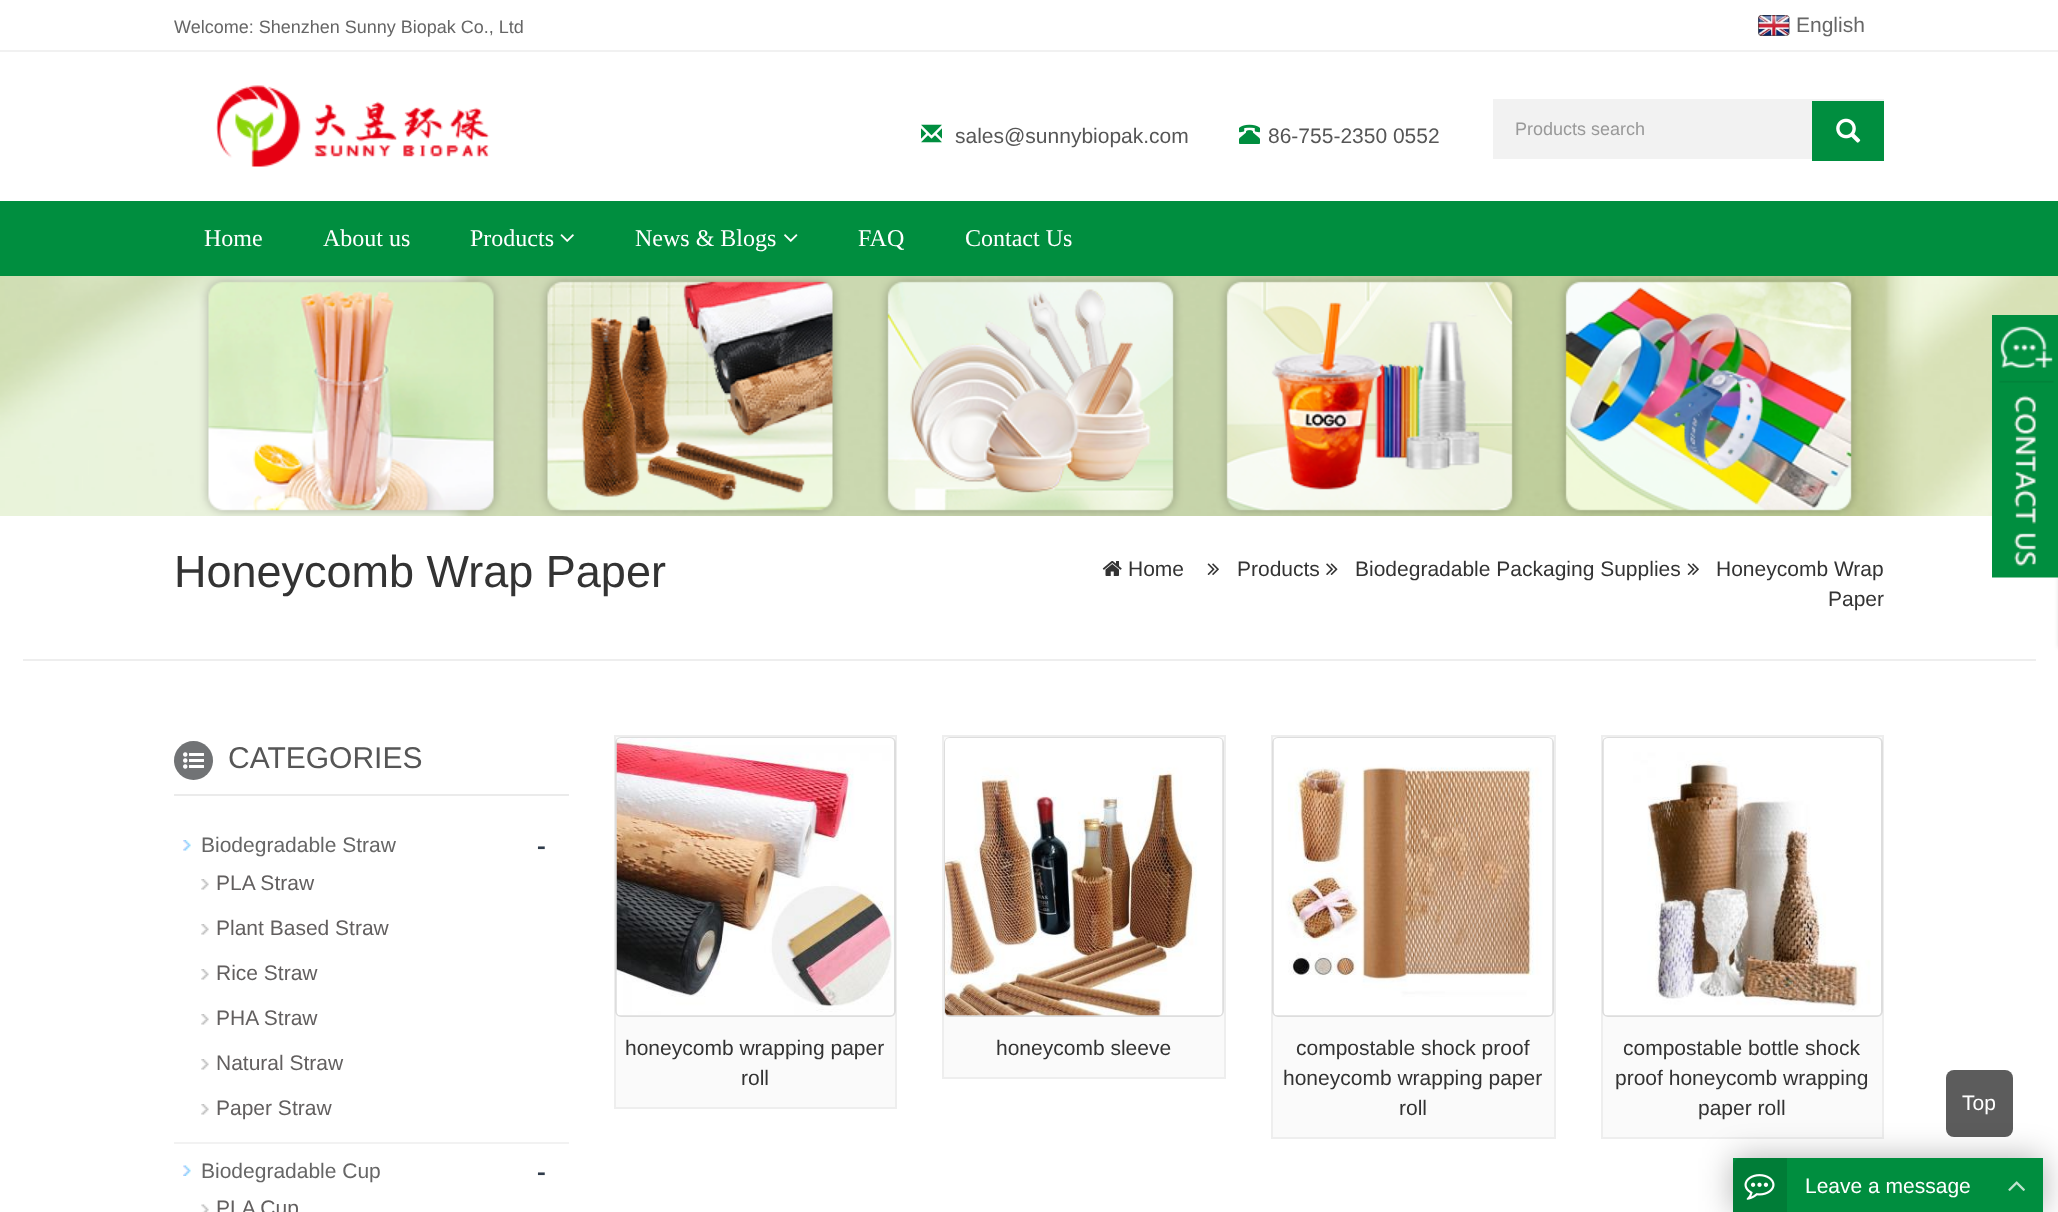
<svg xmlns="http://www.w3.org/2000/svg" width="2058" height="1212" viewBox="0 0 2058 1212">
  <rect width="100%" height="100%" fill="rgb(255,255,255)"/>
  <rect x="0" y="50" width="2058" height="2" fill="rgb(241,241,241)"/>
  <text x="174" y="33" font-family="Liberation Sans" font-size="18" fill="rgb(102,102,102)">Welcome: Shenzhen Sunny Biopak Co., Ltd</text>
  <image x="1758" y="15" width="32" height="21" href="pic1.png"/>
  <text x="1796" y="32" font-family="Liberation Sans" font-size="21" fill="rgb(102,102,102)">English</text>
  <image x="216" y="85" width="274" height="82" href="pic2.png"/>
  <image x="921" y="124" width="21" height="19" href="pic3.png"/>
  <text x="955" y="143" font-family="Liberation Sans" font-size="21" fill="rgb(86,86,86)">sales@sunnybiopak.com</text>
  <image x="1239" y="124" width="21" height="20" href="pic4.png"/>
  <text x="1268" y="143" font-family="Liberation Sans" font-size="21" fill="rgb(86,86,86)">86-755-2350 0552</text>
  <rect x="1493" y="99" width="391" height="60" fill="rgb(242,242,242)"/>
  <text x="1515" y="135" font-family="Liberation Sans" font-size="18" fill="rgb(153,153,153)">Products search</text>
  <rect x="1812" y="101" width="72" height="60" fill="rgb(0,142,63)"/>
  <image x="1836" y="118" width="25" height="25" href="pic5.png"/>
  <rect x="0" y="201" width="2058" height="75" fill="rgb(0,142,63)"/>
  <g font-family="Liberation Serif" font-size="24" fill="rgb(255,255,255)">
    <text x="204" y="246">Home</text>
    <text x="323" y="246">About us</text>
    <text x="470" y="246">Products</text>
  </g>
  <image x="560" y="234" width="14" height="8" href="pic6.png"/>
  <text x="635" y="246" font-family="Liberation Serif" font-size="24" fill="rgb(255,255,255)">News &amp; Blogs</text>
  <image x="784" y="234" width="14" height="8" href="pic7.png"/>
  <g font-family="Liberation Serif" font-size="24" fill="rgb(255,255,255)">
    <text x="858" y="246">FAQ</text>
    <text x="965" y="246">Contact Us</text>
  </g>
  <image x="0" y="276" width="2058" height="240" href="pic8.png"/>
  <text x="174" y="587" font-family="Liberation Sans" font-size="45" fill="rgb(51,51,51)">Honeycomb Wrap Paper</text>
  <image x="1102" y="561" width="20" height="15" href="pic9.png"/>
  <text x="1128" y="576" font-family="Liberation Sans" font-size="21" fill="rgb(51,51,51)">Home</text>
  <image x="1207" y="563" width="12" height="12" href="pic10.png"/>
  <text x="1237" y="576" font-family="Liberation Sans" font-size="21" fill="rgb(51,51,51)">Products</text>
  <image x="1326" y="563" width="12" height="12" href="pic11.png"/>
  <text x="1355" y="576" font-family="Liberation Sans" font-size="21" fill="rgb(51,51,51)">Biodegradable Packaging Supplies</text>
  <image x="1687" y="563" width="12" height="12" href="pic10.png"/>
  <g font-family="Liberation Sans" font-size="21" fill="rgb(51,51,51)">
    <text x="1716" y="576">Honeycomb Wrap</text>
    <text x="1828" y="606">Paper</text>
  </g>
  <rect x="23" y="659" width="2013" height="2" fill="rgb(238,238,238)"/>
  <rect x="2058" y="315" width="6" height="333" fill="rgba(0,0,0,0.1)" filter="blur(2px)"/>
  <image x="1992" y="315" width="66" height="263" href="pic12.png"/>
  <rect x="174" y="794" width="395" height="2" fill="rgb(235,235,235)"/>
  <circle cx="193.5" cy="760.5" r="19.5" fill="rgb(113,115,117)"/>
  <image x="183" y="752" width="21" height="17" href="pic13.png"/>
  <text x="228" y="768" font-family="Liberation Sans" font-size="30" fill="rgb(86,86,86)">CATEGORIES</text>
  <image x="183" y="840" width="8" height="11" href="pic14.png"/>
  <rect x="174" y="1142" width="395" height="2" fill="rgb(242,242,242)"/>
  <text x="201" y="852" font-family="Liberation Sans" font-size="21" fill="rgb(102,102,102)">Biodegradable Straw</text>
  <text x="537" y="855" font-family="Open Sans" font-size="27" font-weight="600" fill="rgb(48,60,75)">-</text>
  <image x="201" y="879" width="8" height="11" href="pic15.png"/>
  <text x="216" y="890" font-family="Liberation Sans" font-size="21" fill="rgb(98,95,95)">PLA Straw</text>
  <image x="201" y="924" width="8" height="11" href="pic15.png"/>
  <text x="216" y="935" font-family="Liberation Sans" font-size="21" fill="rgb(98,95,95)">Plant Based Straw</text>
  <image x="201" y="969" width="8" height="11" href="pic15.png"/>
  <text x="216" y="980" font-family="Liberation Sans" font-size="21" fill="rgb(98,95,95)">Rice Straw</text>
  <image x="201" y="1014" width="8" height="11" href="pic15.png"/>
  <text x="216" y="1025" font-family="Liberation Sans" font-size="21" fill="rgb(98,95,95)">PHA Straw</text>
  <image x="201" y="1059" width="8" height="11" href="pic15.png"/>
  <text x="216" y="1070" font-family="Liberation Sans" font-size="21" fill="rgb(98,95,95)">Natural Straw</text>
  <image x="201" y="1104" width="8" height="11" href="pic15.png"/>
  <text x="216" y="1115" font-family="Liberation Sans" font-size="21" fill="rgb(98,95,95)">Paper Straw</text>
  <image x="183" y="1165" width="8" height="11" href="pic16.png"/>
  <text x="201" y="1178" font-family="Liberation Sans" font-size="21" fill="rgb(102,102,102)">Biodegradable Cup</text>
  <text x="537" y="1181" font-family="Open Sans" font-size="27" font-weight="600" fill="rgb(48,60,75)">-</text>
  <image x="201" y="1204" width="8" height="8" href="pic17.png"/>
  <text x="216" y="1215" font-family="Liberation Sans" font-size="21" fill="rgb(98,95,95)">PLA Cup</text>
  <rect x="615" y="736" width="281" height="372" fill="rgb(250,250,250)" stroke="rgb(238,238,238)" stroke-width="2"/>
  <rect x="616" y="738" width="279" height="278" rx="5" fill="none" stroke="rgb(221,221,221)" stroke-width="2"/>
  <image x="616" y="738" width="278" height="278" href="pic18.png"/>
  <g font-family="Liberation Sans" font-size="21" fill="rgb(51,51,51)">
    <text x="625" y="1055">honeycomb wrapping paper</text>
    <text x="741" y="1085">roll</text>
  </g>
  <rect x="943" y="736" width="282" height="342" fill="rgb(250,250,250)" stroke="rgb(238,238,238)" stroke-width="2"/>
  <rect x="945" y="738" width="278" height="278" rx="5" fill="none" stroke="rgb(221,221,221)" stroke-width="2"/>
  <image x="945" y="738" width="278" height="278" href="pic19.png"/>
  <text x="996" y="1055" font-family="Liberation Sans" font-size="21" fill="rgb(51,51,51)">honeycomb sleeve</text>
  <rect x="1272" y="736" width="283" height="402" fill="rgb(250,250,250)" stroke="rgb(238,238,238)" stroke-width="2"/>
  <rect x="1273" y="738" width="280" height="278" rx="5" fill="none" stroke="rgb(221,221,221)" stroke-width="2"/>
  <image x="1273" y="738" width="280" height="278" href="pic20.png"/>
  <g font-family="Liberation Sans" font-size="21" fill="rgb(51,51,51)">
    <text x="1296" y="1055">compostable shock proof</text>
    <text x="1283" y="1085">honeycomb wrapping paper</text>
    <text x="1399" y="1115">roll</text>
  </g>
  <rect x="1602" y="736" width="281" height="402" fill="rgb(250,250,250)" stroke="rgb(238,238,238)" stroke-width="2"/>
  <rect x="1603" y="738" width="279" height="278" rx="5" fill="none" stroke="rgb(221,221,221)" stroke-width="2"/>
  <image x="1603" y="738" width="278" height="278" href="pic21.png"/>
  <g font-family="Liberation Sans" font-size="21" fill="rgb(51,51,51)">
    <text x="1623" y="1055">compostable bottle shock</text>
    <text x="1615" y="1085">proof honeycomb wrapping</text>
    <text x="1698" y="1115">paper roll</text>
  </g>
  <rect x="1946" y="1070" width="67" height="67" rx="8" fill="rgb(92,92,92)"/>
  <text x="1962" y="1110" font-family="Liberation Sans" font-size="21" fill="rgb(255,255,255)">Top</text>
  <rect x="1733" y="1158" width="310" height="54" fill="rgba(0,0,0,0.3)" filter="blur(16px)"/>
  <rect x="1733" y="1158" width="310" height="54" fill="rgb(0,142,63)"/>
  <path d="M1741 1158H1787V1212H1733V1166C1733 1161.5 1736.5 1158 1741 1158Z" fill="rgb(0,125,55)"/>
  <image x="1744" y="1174" width="31" height="26" href="pic22.png"/>
  <text x="1805" y="1193" font-family="Liberation Sans" font-size="21" fill="rgb(255,255,255)">Leave a message</text>
  <image x="2008" y="1181" width="17" height="10" href="pic23.png"/>
</svg>
